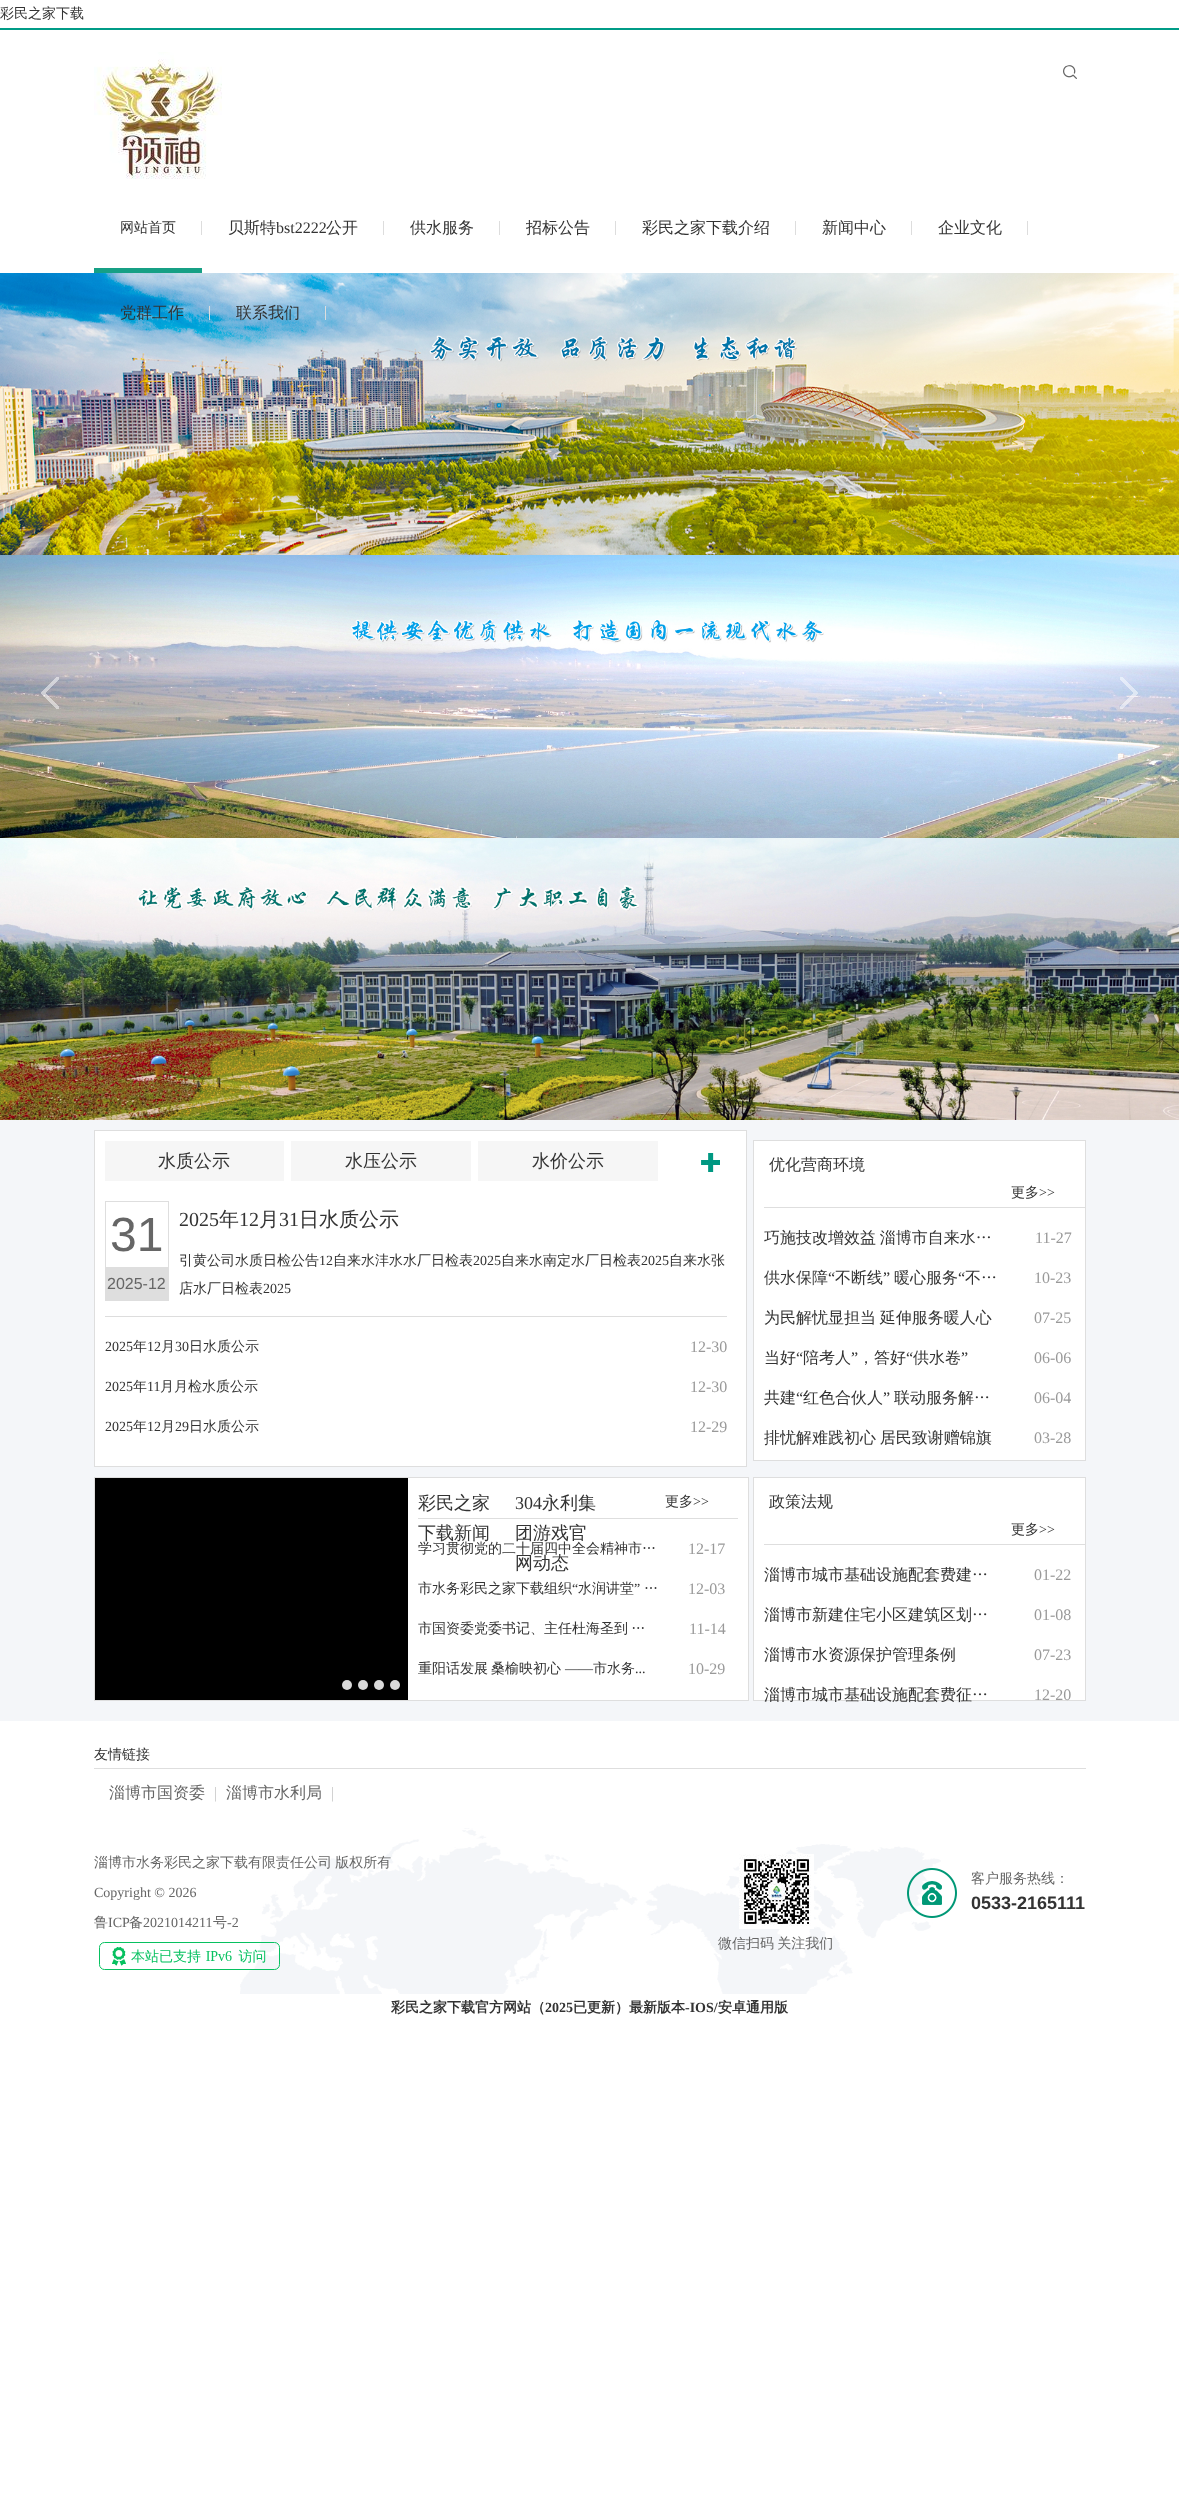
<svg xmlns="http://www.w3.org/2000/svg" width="1179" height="2509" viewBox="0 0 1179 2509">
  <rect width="100%" height="100%" fill="rgb(255,255,255)"/>
  <text x="0" y="18" font-family="WenQuanYi Zen Hei" font-size="14" font-weight="500" fill="rgb(51,51,51)">彩民之家下载</text>
  <rect x="0" y="28" width="1179" height="2" fill="rgb(0,156,135)"/>
  <image x="94" y="52" width="128" height="127" href="pic1.png"/>
  <image x="1063" y="65" width="14" height="14" href="pic2.png"/>
  <rect x="201" y="221" width="1" height="14" fill="rgb(221,221,221)"/>
  <text x="120" y="232" font-family="WenQuanYi Zen Hei" font-size="14" font-weight="500" fill="rgb(51,51,51)">网站首页</text>
  <rect x="94" y="268" width="108" height="5" fill="rgb(22,160,133)"/>
  <rect x="383" y="221" width="1" height="14" fill="rgb(221,221,221)"/>
  <text x="228" y="233" font-family="WenQuanYi Zen Hei" font-size="16" font-weight="500" fill="rgb(51,51,51)">贝斯特</text>
  <text x="276" y="233" font-family="Liberation Serif" font-size="16" fill="rgb(51,51,51)">bst2222</text>
  <text x="326" y="233" font-family="WenQuanYi Zen Hei" font-size="16" font-weight="500" fill="rgb(51,51,51)">公开</text>
  <rect x="499" y="221" width="1" height="14" fill="rgb(221,221,221)"/>
  <text x="410" y="233" font-family="WenQuanYi Zen Hei" font-size="16" font-weight="500" fill="rgb(51,51,51)">供水服务</text>
  <rect x="615" y="221" width="1" height="14" fill="rgb(221,221,221)"/>
  <text x="526" y="233" font-family="WenQuanYi Zen Hei" font-size="16" font-weight="500" fill="rgb(51,51,51)">招标公告</text>
  <rect x="795" y="221" width="1" height="14" fill="rgb(221,221,221)"/>
  <text x="642" y="233" font-family="WenQuanYi Zen Hei" font-size="16" font-weight="500" fill="rgb(51,51,51)">彩民之家下载介绍</text>
  <rect x="911" y="221" width="1" height="14" fill="rgb(221,221,221)"/>
  <text x="822" y="233" font-family="WenQuanYi Zen Hei" font-size="16" font-weight="500" fill="rgb(51,51,51)">新闻中心</text>
  <rect x="1027" y="221" width="1" height="14" fill="rgb(221,221,221)"/>
  <text x="938" y="233" font-family="WenQuanYi Zen Hei" font-size="16" font-weight="500" fill="rgb(51,51,51)">企业文化</text>
  <image x="0" y="273" width="1179" height="282" href="pic3.png"/>
  <rect x="209" y="306" width="1" height="14" fill="rgb(221,221,221)"/>
  <text x="120" y="318" font-family="WenQuanYi Zen Hei" font-size="16" font-weight="500" fill="rgb(51,51,51)">党群工作</text>
  <rect x="325" y="306" width="1" height="14" fill="rgb(221,221,221)"/>
  <text x="236" y="318" font-family="WenQuanYi Zen Hei" font-size="16" font-weight="500" fill="rgb(51,51,51)">联系我们</text>
  <image x="0" y="555" width="1179" height="283" href="pic4.png"/>
  <image x="0" y="838" width="1179" height="282" href="pic5.png"/>
  <image x="41" y="677" width="18" height="32" href="pic6.png"/>
  <image x="1120" y="677" width="18" height="32" href="pic7.png"/>
  <rect x="0" y="1120" width="1179" height="601" fill="rgb(244,246,249)"/>
  <rect x="94.5" y="1130.5" width="652" height="336" fill="rgb(255,255,255)" stroke="rgb(222,222,222)"/>
  <rect x="105" y="1141" width="179" height="40" fill="rgb(246,246,246)"/>
  <text x="158" y="1167" font-family="WenQuanYi Zen Hei" font-size="18" font-weight="500" fill="rgb(51,51,51)">水质公示</text>
  <rect x="291" y="1141" width="180" height="40" fill="rgb(246,246,246)"/>
  <text x="345" y="1167" font-family="WenQuanYi Zen Hei" font-size="18" font-weight="500" fill="rgb(51,51,51)">水压公示</text>
  <rect x="478" y="1141" width="180" height="40" fill="rgb(246,246,246)"/>
  <text x="532" y="1167" font-family="WenQuanYi Zen Hei" font-size="18" font-weight="500" fill="rgb(51,51,51)">水价公示</text>
  <image x="701" y="1153" width="19" height="19" href="pic8.png"/>
  <rect x="105" y="1316" width="622" height="1" fill="rgb(221,221,221)"/>
  <rect x="105.5" y="1201.5" width="63" height="99" fill="none" stroke="rgb(222,222,222)"/>
  <text x="110" y="1251" font-family="Liberation Sans" font-size="48" fill="rgb(102,102,102)">31</text>
  <rect x="106" y="1267" width="62" height="33" fill="rgb(222,222,222)"/>
  <text x="107" y="1289" font-family="Liberation Sans" font-size="16" fill="rgb(102,102,102)">2025-12</text>
  <text x="179" y="1226" font-family="Liberation Serif" font-size="20" fill="rgb(51,51,51)">2025</text>
  <text x="219" y="1226" font-family="WenQuanYi Zen Hei" font-size="20" font-weight="500" fill="rgb(51,51,51)">年</text>
  <text x="239" y="1226" font-family="Liberation Serif" font-size="20" fill="rgb(51,51,51)">12</text>
  <text x="259" y="1226" font-family="WenQuanYi Zen Hei" font-size="20" font-weight="500" fill="rgb(51,51,51)">月</text>
  <text x="279" y="1226" font-family="Liberation Serif" font-size="20" fill="rgb(51,51,51)">31</text>
  <text x="299" y="1226" font-family="WenQuanYi Zen Hei" font-size="20" font-weight="500" fill="rgb(51,51,51)">日水质公示</text>
  <text x="179" y="1265" font-family="WenQuanYi Zen Hei" font-size="14" font-weight="500" fill="rgb(51,51,51)">引黄公司水质日检公告</text>
  <text x="319" y="1265" font-family="Liberation Serif" font-size="14" fill="rgb(51,51,51)">12</text>
  <text x="333" y="1265" font-family="WenQuanYi Zen Hei" font-size="14" font-weight="500" fill="rgb(51,51,51)">自来水沣水水厂日检表</text>
  <text x="473" y="1265" font-family="Liberation Serif" font-size="14" fill="rgb(51,51,51)">2025</text>
  <text x="501" y="1265" font-family="WenQuanYi Zen Hei" font-size="14" font-weight="500" fill="rgb(51,51,51)">自来水南定水厂日检表</text>
  <text x="641" y="1265" font-family="Liberation Serif" font-size="14" fill="rgb(51,51,51)">2025</text>
  <g font-family="WenQuanYi Zen Hei" font-size="14" font-weight="500" fill="rgb(51,51,51)">
    <text x="669" y="1265">自来水张</text>
    <text x="179" y="1293">店水厂日检表</text>
  </g>
  <g font-family="Liberation Serif" font-size="14" fill="rgb(51,51,51)">
    <text x="263" y="1293">2025</text>
    <text x="105" y="1351">2025</text>
  </g>
  <text x="133" y="1351" font-family="WenQuanYi Zen Hei" font-size="14" font-weight="500" fill="rgb(51,51,51)">年</text>
  <text x="147" y="1351" font-family="Liberation Serif" font-size="14" fill="rgb(51,51,51)">12</text>
  <text x="161" y="1351" font-family="WenQuanYi Zen Hei" font-size="14" font-weight="500" fill="rgb(51,51,51)">月</text>
  <text x="175" y="1351" font-family="Liberation Serif" font-size="14" fill="rgb(51,51,51)">30</text>
  <text x="189" y="1351" font-family="WenQuanYi Zen Hei" font-size="14" font-weight="500" fill="rgb(51,51,51)">日水质公示</text>
  <text x="690" y="1352" font-family="Liberation Serif" font-size="16" fill="rgb(153,153,153)">12-30</text>
  <text x="105" y="1391" font-family="Liberation Serif" font-size="14" fill="rgb(51,51,51)">2025</text>
  <text x="133" y="1391" font-family="WenQuanYi Zen Hei" font-size="14" font-weight="500" fill="rgb(51,51,51)">年</text>
  <text x="147" y="1391" font-family="Liberation Serif" font-size="14" fill="rgb(51,51,51)">11</text>
  <text x="160" y="1391" font-family="WenQuanYi Zen Hei" font-size="14" font-weight="500" fill="rgb(51,51,51)">月月检水质公示</text>
  <text x="690" y="1392" font-family="Liberation Serif" font-size="16" fill="rgb(153,153,153)">12-30</text>
  <text x="105" y="1431" font-family="Liberation Serif" font-size="14" fill="rgb(51,51,51)">2025</text>
  <text x="133" y="1431" font-family="WenQuanYi Zen Hei" font-size="14" font-weight="500" fill="rgb(51,51,51)">年</text>
  <text x="147" y="1431" font-family="Liberation Serif" font-size="14" fill="rgb(51,51,51)">12</text>
  <text x="161" y="1431" font-family="WenQuanYi Zen Hei" font-size="14" font-weight="500" fill="rgb(51,51,51)">月</text>
  <text x="175" y="1431" font-family="Liberation Serif" font-size="14" fill="rgb(51,51,51)">29</text>
  <text x="189" y="1431" font-family="WenQuanYi Zen Hei" font-size="14" font-weight="500" fill="rgb(51,51,51)">日水质公示</text>
  <text x="690" y="1432" font-family="Liberation Serif" font-size="16" fill="rgb(153,153,153)">12-29</text>
  <rect x="753.5" y="1140.5" width="332" height="320" fill="rgb(255,255,255)" stroke="rgb(222,222,222)"/>
  <text x="769" y="1170" font-family="WenQuanYi Zen Hei" font-size="16" font-weight="500" fill="rgb(51,51,51)">优化营商环境</text>
  <text x="1011" y="1197" font-family="WenQuanYi Zen Hei" font-size="14" font-weight="500" fill="rgb(51,51,51)">更多</text>
  <text x="1039" y="1197" font-family="Liberation Serif" font-size="14" fill="rgb(51,51,51)">&gt;&gt;</text>
  <rect x="764" y="1207" width="321" height="1" fill="rgb(222,222,222)"/>
  <text x="764" y="1243" word-spacing="-1" font-family="WenQuanYi Zen Hei" font-size="16" font-weight="500" fill="rgb(51,51,51)">巧施技改增效益 淄博市自来水…</text>
  <text x="1035" y="1243" font-family="Liberation Serif" font-size="16" fill="rgb(153,153,153)">11-27</text>
  <text x="764" y="1283" font-family="WenQuanYi Zen Hei" font-size="16" font-weight="500" fill="rgb(51,51,51)">供水保障</text>
  <text x="828" y="1283" font-family="Liberation Serif" font-size="16" fill="rgb(51,51,51)">“</text>
  <text x="835" y="1283" font-family="WenQuanYi Zen Hei" font-size="16" font-weight="500" fill="rgb(51,51,51)">不断线</text>
  <text x="883" y="1283" font-family="Liberation Serif" font-size="16" fill="rgb(51,51,51)">”</text>
  <text x="894" y="1283" font-family="WenQuanYi Zen Hei" font-size="16" font-weight="500" fill="rgb(51,51,51)">暖心服务</text>
  <text x="958" y="1283" font-family="Liberation Serif" font-size="16" fill="rgb(51,51,51)">“</text>
  <text x="965" y="1283" font-family="WenQuanYi Zen Hei" font-size="16" font-weight="500" fill="rgb(51,51,51)">不…</text>
  <text x="1034" y="1283" font-family="Liberation Serif" font-size="16" fill="rgb(153,153,153)">10-23</text>
  <text x="764" y="1323" word-spacing="-1" font-family="WenQuanYi Zen Hei" font-size="16" font-weight="500" fill="rgb(51,51,51)">为民解忧显担当 延伸服务暖人心</text>
  <text x="1034" y="1323" font-family="Liberation Serif" font-size="16" fill="rgb(153,153,153)">07-25</text>
  <text x="764" y="1363" font-family="WenQuanYi Zen Hei" font-size="16" font-weight="500" fill="rgb(51,51,51)">当好</text>
  <text x="796" y="1363" font-family="Liberation Serif" font-size="16" fill="rgb(51,51,51)">“</text>
  <text x="803" y="1363" font-family="WenQuanYi Zen Hei" font-size="16" font-weight="500" fill="rgb(51,51,51)">陪考人</text>
  <text x="851" y="1363" font-family="Liberation Serif" font-size="16" fill="rgb(51,51,51)">”</text>
  <text x="858" y="1363" font-family="WenQuanYi Zen Hei" font-size="16" font-weight="500" fill="rgb(51,51,51)">，答好</text>
  <text x="906" y="1363" font-family="Liberation Serif" font-size="16" fill="rgb(51,51,51)">“</text>
  <text x="913" y="1363" font-family="WenQuanYi Zen Hei" font-size="16" font-weight="500" fill="rgb(51,51,51)">供水卷</text>
  <text x="961" y="1363" font-family="Liberation Serif" font-size="16" fill="rgb(51,51,51)">”</text>
  <text x="1034" y="1363" font-family="Liberation Serif" font-size="16" fill="rgb(153,153,153)">06-06</text>
  <text x="764" y="1403" font-family="WenQuanYi Zen Hei" font-size="16" font-weight="500" fill="rgb(51,51,51)">共建</text>
  <text x="796" y="1403" font-family="Liberation Serif" font-size="16" fill="rgb(51,51,51)">“</text>
  <text x="803" y="1403" font-family="WenQuanYi Zen Hei" font-size="16" font-weight="500" fill="rgb(51,51,51)">红色合伙人</text>
  <text x="883" y="1403" font-family="Liberation Serif" font-size="16" fill="rgb(51,51,51)">”</text>
  <text x="894" y="1403" font-family="WenQuanYi Zen Hei" font-size="16" font-weight="500" fill="rgb(51,51,51)">联动服务解…</text>
  <text x="1034" y="1403" font-family="Liberation Serif" font-size="16" fill="rgb(153,153,153)">06-04</text>
  <text x="764" y="1443" word-spacing="-1" font-family="WenQuanYi Zen Hei" font-size="16" font-weight="500" fill="rgb(51,51,51)">排忧解难践初心 居民致谢赠锦旗</text>
  <text x="1034" y="1443" font-family="Liberation Serif" font-size="16" fill="rgb(153,153,153)">03-28</text>
  <rect x="94" y="1477" width="655" height="1" fill="rgb(222,222,222)"/>
  <rect x="94" y="1700" width="314" height="1" fill="rgb(222,222,222)"/>
  <rect x="94" y="1477" width="1" height="224" fill="rgb(222,222,222)"/>
  <rect x="95" y="1478" width="313" height="222" fill="rgb(0,0,0)"/>
  <circle cx="347" cy="1685" r="5" fill="rgb(217,217,217)"/>
  <circle cx="363" cy="1685" r="5" fill="rgb(217,217,217)"/>
  <circle cx="379" cy="1685" r="5" fill="rgb(217,217,217)"/>
  <circle cx="395" cy="1685" r="5" fill="rgb(217,217,217)"/>
  <rect x="408" y="1478" width="340" height="222" fill="rgb(255,255,255)"/>
  <rect x="748" y="1477" width="1" height="224" fill="rgb(222,222,222)"/>
  <rect x="408" y="1700" width="341" height="1" fill="rgb(222,222,222)"/>
  <g font-family="WenQuanYi Zen Hei" font-size="18" font-weight="500" fill="rgb(51,51,51)">
    <text>
      <tspan x="418" y="1509">彩民之家</tspan>
      <tspan x="418" y="1539">下载新闻</tspan>
    </text>
  </g>
  <text x="515" y="1509" font-family="Liberation Serif" font-size="18" fill="rgb(51,51,51)">304</text>
  <g font-family="WenQuanYi Zen Hei" font-size="18" font-weight="500" fill="rgb(51,51,51)">
    <text x="542" y="1509">永利集</text>
    <text>
      <tspan x="515" y="1539">团游戏官</tspan>
      <tspan x="515" y="1569">网动态</tspan>
    </text>
  </g>
  <text x="665" y="1506" font-family="WenQuanYi Zen Hei" font-size="14" font-weight="500" fill="rgb(51,51,51)">更多</text>
  <text x="693" y="1506" font-family="Liberation Serif" font-size="14" fill="rgb(51,51,51)">&gt;&gt;</text>
  <rect x="418" y="1518" width="320" height="1" fill="rgb(222,222,222)"/>
  <text x="418" y="1553" font-family="WenQuanYi Zen Hei" font-size="14" font-weight="500" fill="rgb(51,51,51)">学习贯彻党的二十届四中全会精神市…</text>
  <text x="688" y="1554" font-family="Liberation Serif" font-size="16" fill="rgb(153,153,153)">12-17</text>
  <text x="418" y="1593" font-family="WenQuanYi Zen Hei" font-size="14" font-weight="500" fill="rgb(51,51,51)">市水务彩民之家下载组织</text>
  <text x="572" y="1593" font-family="Liberation Serif" font-size="14" fill="rgb(51,51,51)">“</text>
  <text x="578" y="1593" font-family="WenQuanYi Zen Hei" font-size="14" font-weight="500" fill="rgb(51,51,51)">水润讲堂</text>
  <text x="634" y="1593" font-family="Liberation Serif" font-size="14" fill="rgb(51,51,51)">”</text>
  <text x="644" y="1593" font-family="WenQuanYi Zen Hei" font-size="14" font-weight="500" fill="rgb(51,51,51)">…</text>
  <text x="688" y="1594" font-family="Liberation Serif" font-size="16" fill="rgb(153,153,153)">12-03</text>
  <text x="418" y="1633" word-spacing="-1" font-family="WenQuanYi Zen Hei" font-size="14" font-weight="500" fill="rgb(51,51,51)">市国资委党委书记、主任杜海圣到 …</text>
  <text x="689" y="1634" font-family="Liberation Serif" font-size="16" fill="rgb(153,153,153)">11-14</text>
  <g font-family="WenQuanYi Zen Hei" font-size="14" font-weight="500" fill="rgb(51,51,51)">
    <text x="418" y="1673">重阳话发展</text>
    <text x="491" y="1673">桑榆映初心</text>
  </g>
  <text x="565" y="1673" font-family="Liberation Serif" font-size="14" fill="rgb(51,51,51)">——</text>
  <text x="593" y="1673" font-family="WenQuanYi Zen Hei" font-size="14" font-weight="500" fill="rgb(51,51,51)">市水务</text>
  <text x="635" y="1673" font-family="Liberation Serif" font-size="14" fill="rgb(51,51,51)">...</text>
  <text x="688" y="1674" font-family="Liberation Serif" font-size="16" fill="rgb(153,153,153)">10-29</text>
  <rect x="753.5" y="1477.5" width="332" height="223" fill="rgb(255,255,255)" stroke="rgb(222,222,222)"/>
  <text x="769" y="1507" font-family="WenQuanYi Zen Hei" font-size="16" font-weight="500" fill="rgb(51,51,51)">政策法规</text>
  <text x="1011" y="1534" font-family="WenQuanYi Zen Hei" font-size="14" font-weight="500" fill="rgb(51,51,51)">更多</text>
  <text x="1039" y="1534" font-family="Liberation Serif" font-size="14" fill="rgb(51,51,51)">&gt;&gt;</text>
  <rect x="764" y="1544" width="321" height="1" fill="rgb(222,222,222)"/>
  <text x="764" y="1580" font-family="WenQuanYi Zen Hei" font-size="16" font-weight="500" fill="rgb(51,51,51)">淄博市城市基础设施配套费建…</text>
  <text x="1034" y="1580" font-family="Liberation Serif" font-size="16" fill="rgb(153,153,153)">01-22</text>
  <text x="764" y="1620" font-family="WenQuanYi Zen Hei" font-size="16" font-weight="500" fill="rgb(51,51,51)">淄博市新建住宅小区建筑区划…</text>
  <text x="1034" y="1620" font-family="Liberation Serif" font-size="16" fill="rgb(153,153,153)">01-08</text>
  <text x="764" y="1660" font-family="WenQuanYi Zen Hei" font-size="16" font-weight="500" fill="rgb(51,51,51)">淄博市水资源保护管理条例</text>
  <text x="1034" y="1660" font-family="Liberation Serif" font-size="16" fill="rgb(153,153,153)">07-23</text>
  <text x="764" y="1700" font-family="WenQuanYi Zen Hei" font-size="16" font-weight="500" fill="rgb(51,51,51)">淄博市城市基础设施配套费征…</text>
  <text x="1034" y="1700" font-family="Liberation Serif" font-size="16" fill="rgb(153,153,153)">12-20</text>
  <text x="94" y="1759" font-family="WenQuanYi Zen Hei" font-size="14" font-weight="500" fill="rgb(51,51,51)">友情链接</text>
  <rect x="94" y="1768" width="992" height="1" fill="rgb(222,222,222)"/>
  <text x="109" y="1798" font-family="WenQuanYi Zen Hei" font-size="16" font-weight="500" fill="rgb(102,102,102)">淄博市国资委</text>
  <text x="214" y="1798" font-family="Liberation Serif" font-size="16" fill="rgb(201,201,201)">|</text>
  <text x="226" y="1798" font-family="WenQuanYi Zen Hei" font-size="16" font-weight="500" fill="rgb(102,102,102)">淄博市水利局</text>
  <text x="331" y="1798" font-family="Liberation Serif" font-size="16" fill="rgb(201,201,201)">|</text>
  <image x="240" y="1828" width="701" height="166" href="pic9.png"/>
  <text x="94" y="1867" word-spacing="-1" font-family="WenQuanYi Zen Hei" font-size="14" font-weight="500" fill="rgb(102,102,102)">淄博市水务彩民之家下载有限责任公司 版权所有</text>
  <text x="94" y="1897" font-family="Liberation Serif" font-size="14" fill="rgb(102,102,102)">Copyright © 2026</text>
  <text x="94" y="1927" font-family="WenQuanYi Zen Hei" font-size="14" font-weight="500" fill="rgb(102,102,102)">鲁</text>
  <text x="108" y="1927" font-family="Liberation Serif" font-size="14" fill="rgb(102,102,102)">ICP</text>
  <text x="129" y="1927" font-family="WenQuanYi Zen Hei" font-size="14" font-weight="500" fill="rgb(102,102,102)">备</text>
  <text x="143" y="1927" font-family="Liberation Serif" font-size="14" fill="rgb(102,102,102)">2021014211</text>
  <text x="213" y="1927" font-family="WenQuanYi Zen Hei" font-size="14" font-weight="500" fill="rgb(102,102,102)">号</text>
  <text x="227" y="1927" font-family="Liberation Serif" font-size="14" fill="rgb(102,102,102)">-2</text>
  <image x="99" y="1942" width="181" height="28" href="pic10.png"/>
  <image x="907" y="1868" width="50" height="50" href="pic11.png"/>
  <text x="971" y="1883" font-family="WenQuanYi Zen Hei" font-size="14" font-weight="500" fill="rgb(102,102,102)">客户服务热线：</text>
  <text x="971" y="1909" font-family="Liberation Sans" font-size="18" font-weight="bold" fill="rgb(51,51,51)">0533-2165111</text>
  <image x="739" y="1854" width="75" height="75" href="pic12.png"/>
  <text x="718" y="1948" word-spacing="-1" font-family="WenQuanYi Zen Hei" font-size="14" font-weight="500" fill="rgb(102,102,102)">微信扫码 关注我们</text>
  <text x="391" y="2012" font-family="WenQuanYi Zen Hei" font-size="14" font-weight="bold" fill="rgb(51,51,51)">彩民之家下载官方网站（</text>
  <text x="545" y="2012" font-family="Liberation Serif" font-size="14" font-weight="bold" fill="rgb(51,51,51)">2025</text>
  <text x="573" y="2012" font-family="WenQuanYi Zen Hei" font-size="14" font-weight="bold" fill="rgb(51,51,51)">已更新）最新版本</text>
  <text x="685" y="2012" font-family="Liberation Serif" font-size="14" font-weight="bold" fill="rgb(51,51,51)">-IOS/</text>
  <text x="718" y="2012" font-family="WenQuanYi Zen Hei" font-size="14" font-weight="bold" fill="rgb(51,51,51)">安卓通用版</text>
</svg>
